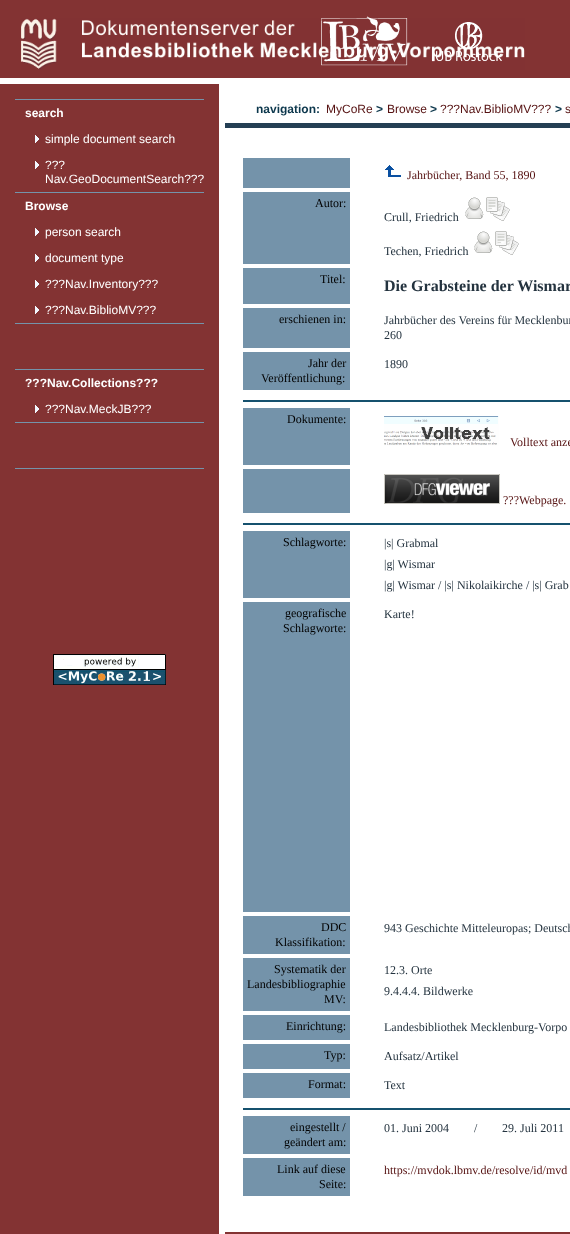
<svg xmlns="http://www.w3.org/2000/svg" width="570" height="1234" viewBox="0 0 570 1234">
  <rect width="100%" height="100%" fill="rgb(255,255,255)"/>
  <rect x="0" y="0" width="570" height="78" fill="rgb(131,51,51)"/>
  <image x="21" y="18" width="504" height="52" href="pic2.png"/>
  <image x="321" y="16" width="87" height="50" href="pic1.png"/>
  <image x="436" y="22" width="66" height="40" href="pic3.png"/>
  <rect x="0" y="84" width="219" height="1150" fill="rgb(131,51,51)"/>
  <rect x="15" y="99" width="189" height="1" fill="rgb(116,147,170)"/>
  <rect x="15" y="192" width="189" height="1" fill="rgb(116,147,170)"/>
  <text x="25" y="117" font-family="Liberation Sans" font-size="12" font-weight="bold" fill="rgb(255,255,255)">search</text>
  <image x="35" y="135" width="4" height="8" href="pic4.png"/>
  <text x="45" y="143" font-family="Liberation Sans" font-size="12" fill="rgb(255,255,255)">simple document search</text>
  <image x="35" y="161" width="4" height="8" href="pic4.png"/>
  <g font-family="Liberation Sans" font-size="12" fill="rgb(255,255,255)">
    <text>
      <tspan x="45" y="169">???</tspan>
      <tspan x="45" y="183">Nav.GeoDocumentSearch???</tspan>
    </text>
  </g>
  <rect x="15" y="323" width="189" height="1" fill="rgb(116,147,170)"/>
  <text x="25" y="210" font-family="Liberation Sans" font-size="12" font-weight="bold" fill="rgb(255,255,255)">Browse</text>
  <image x="35" y="228" width="4" height="8" href="pic4.png"/>
  <text x="45" y="236" font-family="Liberation Sans" font-size="12" fill="rgb(255,255,255)">person search</text>
  <image x="35" y="254" width="4" height="8" href="pic4.png"/>
  <text x="45" y="262" font-family="Liberation Sans" font-size="12" fill="rgb(255,255,255)">document type</text>
  <image x="35" y="280" width="4" height="8" href="pic4.png"/>
  <text x="45" y="288" font-family="Liberation Sans" font-size="12" fill="rgb(255,255,255)">???Nav.Inventory???</text>
  <image x="35" y="306" width="4" height="8" href="pic4.png"/>
  <text x="45" y="314" font-family="Liberation Sans" font-size="12" fill="rgb(255,255,255)">???Nav.BiblioMV???</text>
  <rect x="15" y="369" width="189" height="1" fill="rgb(116,147,170)"/>
  <rect x="15" y="422" width="189" height="1" fill="rgb(116,147,170)"/>
  <text x="25" y="387" font-family="Liberation Sans" font-size="12" font-weight="bold" fill="rgb(255,255,255)">???Nav.Collections???</text>
  <image x="35" y="405" width="4" height="8" href="pic4.png"/>
  <text x="45" y="413" font-family="Liberation Sans" font-size="12" fill="rgb(255,255,255)">???Nav.MeckJB???</text>
  <rect x="15" y="468" width="189" height="1" fill="rgb(116,147,170)"/>
  <image x="53" y="654" width="113" height="31" href="pic5.png"/>
  <rect x="225" y="123" width="345" height="5" fill="rgb(36,63,84)"/>
  <text x="256" y="113" font-family="Liberation Sans" font-size="12" font-weight="bold" fill="rgb(12,55,76)">navigation:</text>
  <text x="326" y="113" font-family="Liberation Sans" font-size="12" fill="rgb(85,17,17)">MyCoRe</text>
  <text x="376" y="113" font-family="Liberation Sans" font-size="12" font-weight="bold" fill="rgb(12,55,76)">&gt;</text>
  <text x="387" y="113" font-family="Liberation Sans" font-size="12" fill="rgb(85,17,17)">Browse</text>
  <text x="430" y="113" font-family="Liberation Sans" font-size="12" font-weight="bold" fill="rgb(12,55,76)">&gt;</text>
  <text x="440" y="113" font-family="Liberation Sans" font-size="12" fill="rgb(85,17,17)">???Nav.BiblioMV???</text>
  <text x="555" y="113" font-family="Liberation Sans" font-size="12" font-weight="bold" fill="rgb(12,55,76)">&gt;</text>
  <text x="565" y="113" font-family="Liberation Sans" font-size="12" fill="rgb(85,17,17)">s</text>
  <rect x="243" y="158" width="107" height="30" fill="rgb(116,147,170)"/>
  <image x="385" y="165" width="16" height="12" href="pic6.png"/>
  <text x="407" y="179" font-family="Liberation Serif" font-size="12" fill="rgb(85,17,17)">Jahrbücher, Band 55, 1890</text>
  <rect x="243" y="192" width="107" height="72" fill="rgb(116,147,170)"/>
  <text x="315" y="207" font-family="Liberation Serif" font-size="12" fill="rgb(0,0,0)">Autor:</text>
  <text x="384" y="221" font-family="Liberation Serif" font-size="12" fill="rgb(36,51,63)">Crull, Friedrich</text>
  <image x="465" y="197" width="45" height="24" href="pic7.png"/>
  <text x="384" y="255" font-family="Liberation Serif" font-size="12" fill="rgb(36,51,63)">Techen, Friedrich</text>
  <image x="474" y="231" width="45" height="24" href="pic7.png"/>
  <rect x="243" y="268" width="107" height="36" fill="rgb(116,147,170)"/>
  <text x="320" y="283" font-family="Liberation Serif" font-size="12" fill="rgb(0,0,0)">Titel:</text>
  <text x="384" y="291" font-family="Liberation Serif" font-size="16" font-weight="bold" fill="rgb(36,51,63)">Die Grabsteine der Wismar</text>
  <rect x="243" y="308" width="107" height="40" fill="rgb(116,147,170)"/>
  <text x="279" y="323" font-family="Liberation Serif" font-size="12" fill="rgb(0,0,0)">erschienen in:</text>
  <g font-family="Liberation Serif" font-size="12" fill="rgb(36,51,63)">
    <text>
      <tspan x="384" y="324">Jahrbücher des Vereins für Mecklenbur</tspan>
      <tspan x="384" y="339">260</tspan>
    </text>
  </g>
  <rect x="243" y="352" width="107" height="38" fill="rgb(116,147,170)"/>
  <g font-family="Liberation Serif" font-size="12" fill="rgb(0,0,0)">
    <text x="308" y="367">Jahr der</text>
    <text x="261" y="382">Veröffentlichung:</text>
  </g>
  <text x="384" y="368" font-family="Liberation Serif" font-size="12" fill="rgb(36,51,63)">1890</text>
  <rect x="243" y="400" width="327" height="2" fill="rgb(21,81,110)"/>
  <rect x="243" y="408" width="107" height="57" fill="rgb(116,147,170)"/>
  <text x="287" y="423" font-family="Liberation Serif" font-size="12" fill="rgb(0,0,0)">Dokumente:</text>
  <image x="384" y="416" width="115" height="30" href="pic8.png"/>
  <text x="510" y="446" font-family="Liberation Serif" font-size="12" fill="rgb(85,17,17)">Volltext anze</text>
  <rect x="243" y="469" width="107" height="44" fill="rgb(116,147,170)"/>
  <image x="384" y="474" width="116" height="30" href="pic9.png"/>
  <text x="503" y="504" font-family="Liberation Serif" font-size="12" fill="rgb(85,17,17)">???Webpage.</text>
  <rect x="243" y="523" width="327" height="2" fill="rgb(21,81,110)"/>
  <rect x="243" y="531" width="107" height="67" fill="rgb(116,147,170)"/>
  <text x="283" y="546" font-family="Liberation Serif" font-size="12" fill="rgb(0,0,0)">Schlagworte:</text>
  <g font-family="Liberation Serif" font-size="12" fill="rgb(36,51,63)">
    <text>
      <tspan x="384" y="547">|s| Grabmal</tspan>
      <tspan x="384" y="568">|g| Wismar</tspan>
      <tspan x="384" y="589">|g| Wismar / |s| Nikolaikirche / |s| Grab</tspan>
    </text>
  </g>
  <rect x="243" y="602" width="107" height="310" fill="rgb(116,147,170)"/>
  <g font-family="Liberation Serif" font-size="12" fill="rgb(0,0,0)">
    <text x="285" y="617">geografische</text>
    <text x="283" y="632">Schlagworte:</text>
  </g>
  <text x="384" y="618" font-family="Liberation Serif" font-size="12" fill="rgb(36,51,63)">Karte!</text>
  <rect x="243" y="916" width="107" height="38" fill="rgb(116,147,170)"/>
  <g font-family="Liberation Serif" font-size="12" fill="rgb(0,0,0)">
    <text x="321" y="931">DDC</text>
    <text x="275" y="946">Klassifikation:</text>
  </g>
  <text x="384" y="932" font-family="Liberation Serif" font-size="12" fill="rgb(36,51,63)">943 Geschichte Mitteleuropas; Deutsch</text>
  <rect x="243" y="958" width="107" height="53" fill="rgb(116,147,170)"/>
  <g font-family="Liberation Serif" font-size="12" fill="rgb(0,0,0)">
    <text x="274" y="973">Systematik der</text>
    <text x="247" y="988">Landesbibliographie</text>
    <text x="324" y="1003">MV:</text>
  </g>
  <g font-family="Liberation Serif" font-size="12" fill="rgb(36,51,63)">
    <text>
      <tspan x="384" y="974">12.3. Orte</tspan>
      <tspan x="384" y="995">9.4.4.4. Bildwerke</tspan>
    </text>
  </g>
  <rect x="243" y="1015" width="107" height="25" fill="rgb(116,147,170)"/>
  <text x="286" y="1030" font-family="Liberation Serif" font-size="12" fill="rgb(0,0,0)">Einrichtung:</text>
  <text x="384" y="1031" font-family="Liberation Serif" font-size="12" fill="rgb(36,51,63)">Landesbibliothek Mecklenburg-Vorpo</text>
  <rect x="243" y="1044" width="107" height="25" fill="rgb(116,147,170)"/>
  <text x="324" y="1059" font-family="Liberation Serif" font-size="12" fill="rgb(0,0,0)">Typ:</text>
  <text x="384" y="1060" font-family="Liberation Serif" font-size="12" fill="rgb(36,51,63)">Aufsatz/Artikel</text>
  <rect x="243" y="1073" width="107" height="25" fill="rgb(116,147,170)"/>
  <text x="308" y="1088" font-family="Liberation Serif" font-size="12" fill="rgb(0,0,0)">Format:</text>
  <text x="384" y="1089" font-family="Liberation Serif" font-size="12" fill="rgb(36,51,63)">Text</text>
  <rect x="243" y="1108" width="327" height="2" fill="rgb(21,81,110)"/>
  <rect x="243" y="1116" width="107" height="38" fill="rgb(116,147,170)"/>
  <g font-family="Liberation Serif" font-size="12" fill="rgb(0,0,0)">
    <text x="290" y="1131">eingestellt /</text>
    <text x="284" y="1146">geändert am:</text>
  </g>
  <g font-family="Liberation Serif" font-size="12" fill="rgb(36,51,63)">
    <text x="384" y="1132">01. Juni 2004</text>
    <text x="474" y="1132">/</text>
    <text x="502" y="1132">29. Juli 2011</text>
  </g>
  <rect x="243" y="1158" width="107" height="38" fill="rgb(116,147,170)"/>
  <g font-family="Liberation Serif" font-size="12" fill="rgb(0,0,0)">
    <text x="277" y="1173">Link auf diese</text>
    <text x="319" y="1188">Seite:</text>
  </g>
  <text x="384" y="1174" font-family="Liberation Serif" font-size="12" fill="rgb(85,17,17)">https://mvdok.lbmv.de/resolve/id/mvd</text>
  <rect x="225" y="1232" width="345" height="2" fill="rgb(131,51,51)"/>
</svg>
